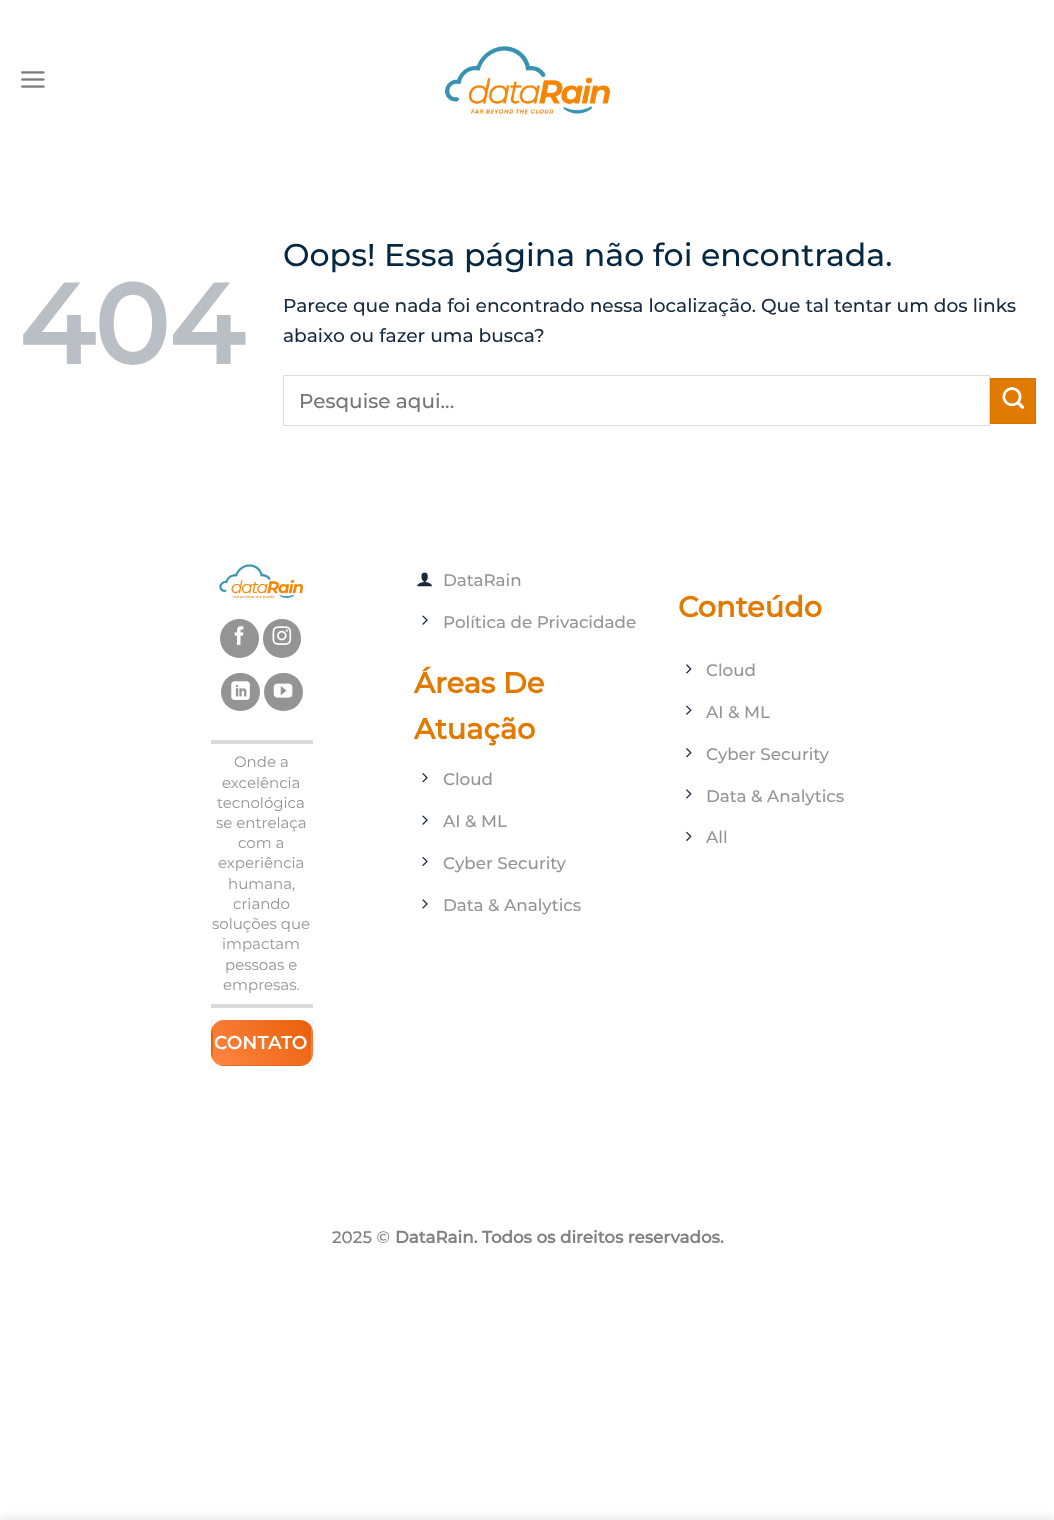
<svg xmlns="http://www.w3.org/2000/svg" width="1054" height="1520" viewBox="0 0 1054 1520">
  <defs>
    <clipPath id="clip1"><rect x="211" y="1020" width="102" height="46" rx="13"/></clipPath>
    <linearGradient id="g1" gradientUnits="userSpaceOnUse" x1="226" y1="1035" x2="298" y2="964"><stop offset="0" stop-color="rgb(254,135,68)"/><stop offset="1" stop-color="rgb(233,95,9)"/></linearGradient>
    <linearGradient id="g2" gradientUnits="userSpaceOnUse" x1="128" y1="1079" x2="199" y2="1008"><stop offset="0" stop-color="rgb(254,135,68)"/><stop offset="1" stop-color="rgb(233,95,9)"/></linearGradient>
    <linearGradient id="g3" gradientUnits="userSpaceOnUse" x1="226" y1="1079" x2="298" y2="1008"><stop offset="0" stop-color="rgb(254,135,68)"/><stop offset="1" stop-color="rgb(233,95,9)"/></linearGradient>
    <linearGradient id="g4" gradientUnits="userSpaceOnUse" x1="325" y1="1079" x2="396" y2="1008"><stop offset="0" stop-color="rgb(254,135,68)"/><stop offset="1" stop-color="rgb(233,95,9)"/></linearGradient>
    <linearGradient id="g5" gradientUnits="userSpaceOnUse" x1="226" y1="1123" x2="298" y2="1051"><stop offset="0" stop-color="rgb(254,135,68)"/><stop offset="1" stop-color="rgb(233,95,9)"/></linearGradient>
  </defs>
  <rect width="100%" height="100%" fill="rgb(255,255,255)"/>
  <image x="21" y="71" width="24" height="17" href="pic1.png"/>
  <image x="444" y="46" width="167" height="68" href="pic2.png"/>
  <text x="19" y="364" font-family="Montserrat" font-size="112" font-weight="bold" fill="rgb(185,191,197)">404</text>
  <text x="283" y="266" font-family="Montserrat" font-size="31.6" font-weight="500" fill="rgb(5,39,65)">Oops! Essa página não foi encontrada.</text>
  <g font-family="Montserrat" font-size="18.6" font-weight="500" fill="rgb(22,41,60)">
    <text>
      <tspan x="283" y="312">Parece que nada foi encontrado nessa localização. Que tal tentar um dos links</tspan>
      <tspan x="283" y="342">abaixo ou fazer uma busca?</tspan>
    </text>
  </g>
  <rect x="283.5" y="375.5" width="706" height="50" fill="none" stroke="rgb(221,221,221)"/>
  <text x="299" y="408" font-family="Montserrat" font-size="20" font-weight="500" fill="rgb(117,117,117)">Pesquise aqui...</text>
  <rect x="990.5" y="378.5" width="45" height="45" fill="rgb(225,122,0)" stroke="rgb(214,116,0)"/>
  <image x="1002" y="387" width="23" height="22" href="pic3.png"/>
  <image x="417" y="572" width="15" height="15" href="pic4.png"/>
  <text x="443" y="586" font-family="Montserrat" font-size="16.75" font-weight="500" fill="rgb(148,148,148)">DataRain</text>
  <image x="422" y="615" width="6" height="10" href="pic5.png"/>
  <text x="443" y="628" font-family="Montserrat" font-size="16.75" font-weight="500" fill="rgb(148,148,148)">Política de Privacidade</text>
  <g font-family="Montserrat" font-size="28.75" font-weight="bold" fill="rgb(225,122,0)">
    <text>
      <tspan x="414" y="693">Áreas De</tspan>
      <tspan x="414" y="739">Atuação</tspan>
    </text>
  </g>
  <image x="422" y="773" width="6" height="10" href="pic6.png"/>
  <text x="443" y="785" font-family="Montserrat" font-size="16.75" font-weight="500" fill="rgb(148,148,148)">Cloud</text>
  <image x="422" y="815" width="6" height="10" href="pic5.png"/>
  <text x="443" y="827" font-family="Montserrat" font-size="16.75" font-weight="500" fill="rgb(148,148,148)">AI &amp; ML</text>
  <image x="422" y="856" width="6" height="10" href="pic7.png"/>
  <text x="443" y="869" font-family="Montserrat" font-size="16.75" font-weight="500" fill="rgb(148,148,148)">Cyber Security</text>
  <image x="422" y="899" width="6" height="10" href="pic8.png"/>
  <text x="443" y="911" font-family="Montserrat" font-size="16.75" font-weight="500" fill="rgb(148,148,148)">Data &amp; Analytics</text>
  <text x="678" y="617" font-family="Montserrat" font-size="28.75" font-weight="bold" fill="rgb(225,122,0)">Conteúdo</text>
  <image x="686" y="664" width="6" height="10" href="pic9.png"/>
  <text x="706" y="676" font-family="Montserrat" font-size="16.75" font-weight="500" fill="rgb(148,148,148)">Cloud</text>
  <image x="686" y="705" width="6" height="10" href="pic10.png"/>
  <text x="706" y="718" font-family="Montserrat" font-size="16.75" font-weight="500" fill="rgb(148,148,148)">AI &amp; ML</text>
  <image x="686" y="748" width="6" height="10" href="pic11.png"/>
  <text x="706" y="760" font-family="Montserrat" font-size="16.75" font-weight="500" fill="rgb(148,148,148)">Cyber Security</text>
  <image x="686" y="789" width="6" height="10" href="pic9.png"/>
  <text x="706" y="802" font-family="Montserrat" font-size="16.75" font-weight="500" fill="rgb(148,148,148)">Data &amp; Analytics</text>
  <image x="686" y="831" width="6" height="10" href="pic12.png"/>
  <text x="706" y="843" font-family="Montserrat" font-size="16.75" font-weight="500" fill="rgb(148,148,148)">All</text>
  <image x="219" y="564" width="84" height="34" href="pic13.png"/>
  <circle cx="239.5" cy="638.5" r="19.5" fill="rgb(148,148,148)"/>
  <image x="234" y="626" width="10" height="19" href="pic14.png"/>
  <rect x="263" y="619" width="38" height="39" rx="19" fill="rgb(148,148,148)"/>
  <image x="272" y="626" width="20" height="19" href="pic15.png"/>
  <rect x="221" y="673" width="39" height="38" rx="19" fill="rgb(148,148,148)"/>
  <image x="231" y="681" width="19" height="19" href="pic16.png"/>
  <rect x="264" y="673" width="39" height="38" rx="19" fill="rgb(148,148,148)"/>
  <image x="273" y="683" width="20" height="15" href="pic17.png"/>
  <rect x="211" y="740" width="102" height="4" fill="rgb(217,217,217)"/>
  <rect x="211" y="1004" width="102" height="4" fill="rgb(217,217,217)"/>
  <g font-family="Montserrat" font-size="15" fill="rgb(148,148,148)">
    <text x="234" y="767">Onde a</text>
    <text x="222" y="788">excelência</text>
    <text x="217" y="808">tecnológica</text>
    <text x="216" y="828">se entrelaça</text>
    <text x="238" y="848">com a</text>
    <text x="218" y="868">experiência</text>
    <text x="228" y="889">humana,</text>
    <text x="233" y="909">criando</text>
    <text x="212" y="929">soluções que</text>
    <text x="222" y="949">impactam</text>
    <text x="225" y="970">pessoas e</text>
    <text x="223" y="990">empresas.</text>
  </g>
  <g clip-path="url(#clip1)">
    <rect x="213" y="1020" width="98" height="1" fill="url(#g1)"/>
    <rect x="211" y="1021" width="2" height="44" fill="url(#g2)"/>
    <rect x="213" y="1021" width="98" height="44" fill="url(#g3)"/>
    <rect x="311" y="1021" width="2" height="44" fill="url(#g4)"/>
    <rect x="213" y="1065" width="98" height="1" fill="url(#g5)"/>
  </g>
  <rect x="211.5" y="1020.5" width="101" height="45" fill="none" stroke="rgba(0,0,0,0.05)"/>
  <text x="214" y="1049" font-family="Montserrat" font-size="18" font-weight="bold" letter-spacing="0.5" fill="rgb(255,255,255)">CONTATO</text>
  <text x="332" y="1243" font-family="Montserrat" font-size="16.75" font-weight="500" fill="rgb(128,128,128)">2025 ©</text>
  <text x="395" y="1243" font-family="Montserrat" font-size="16.75" font-weight="bold" fill="rgb(128,128,128)">DataRain. Todos os direitos reservados.</text>
  <rect x="0" y="1520" width="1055" height="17" fill="rgba(0,0,0,0.14)" filter="blur(5.5px)"/>
</svg>
